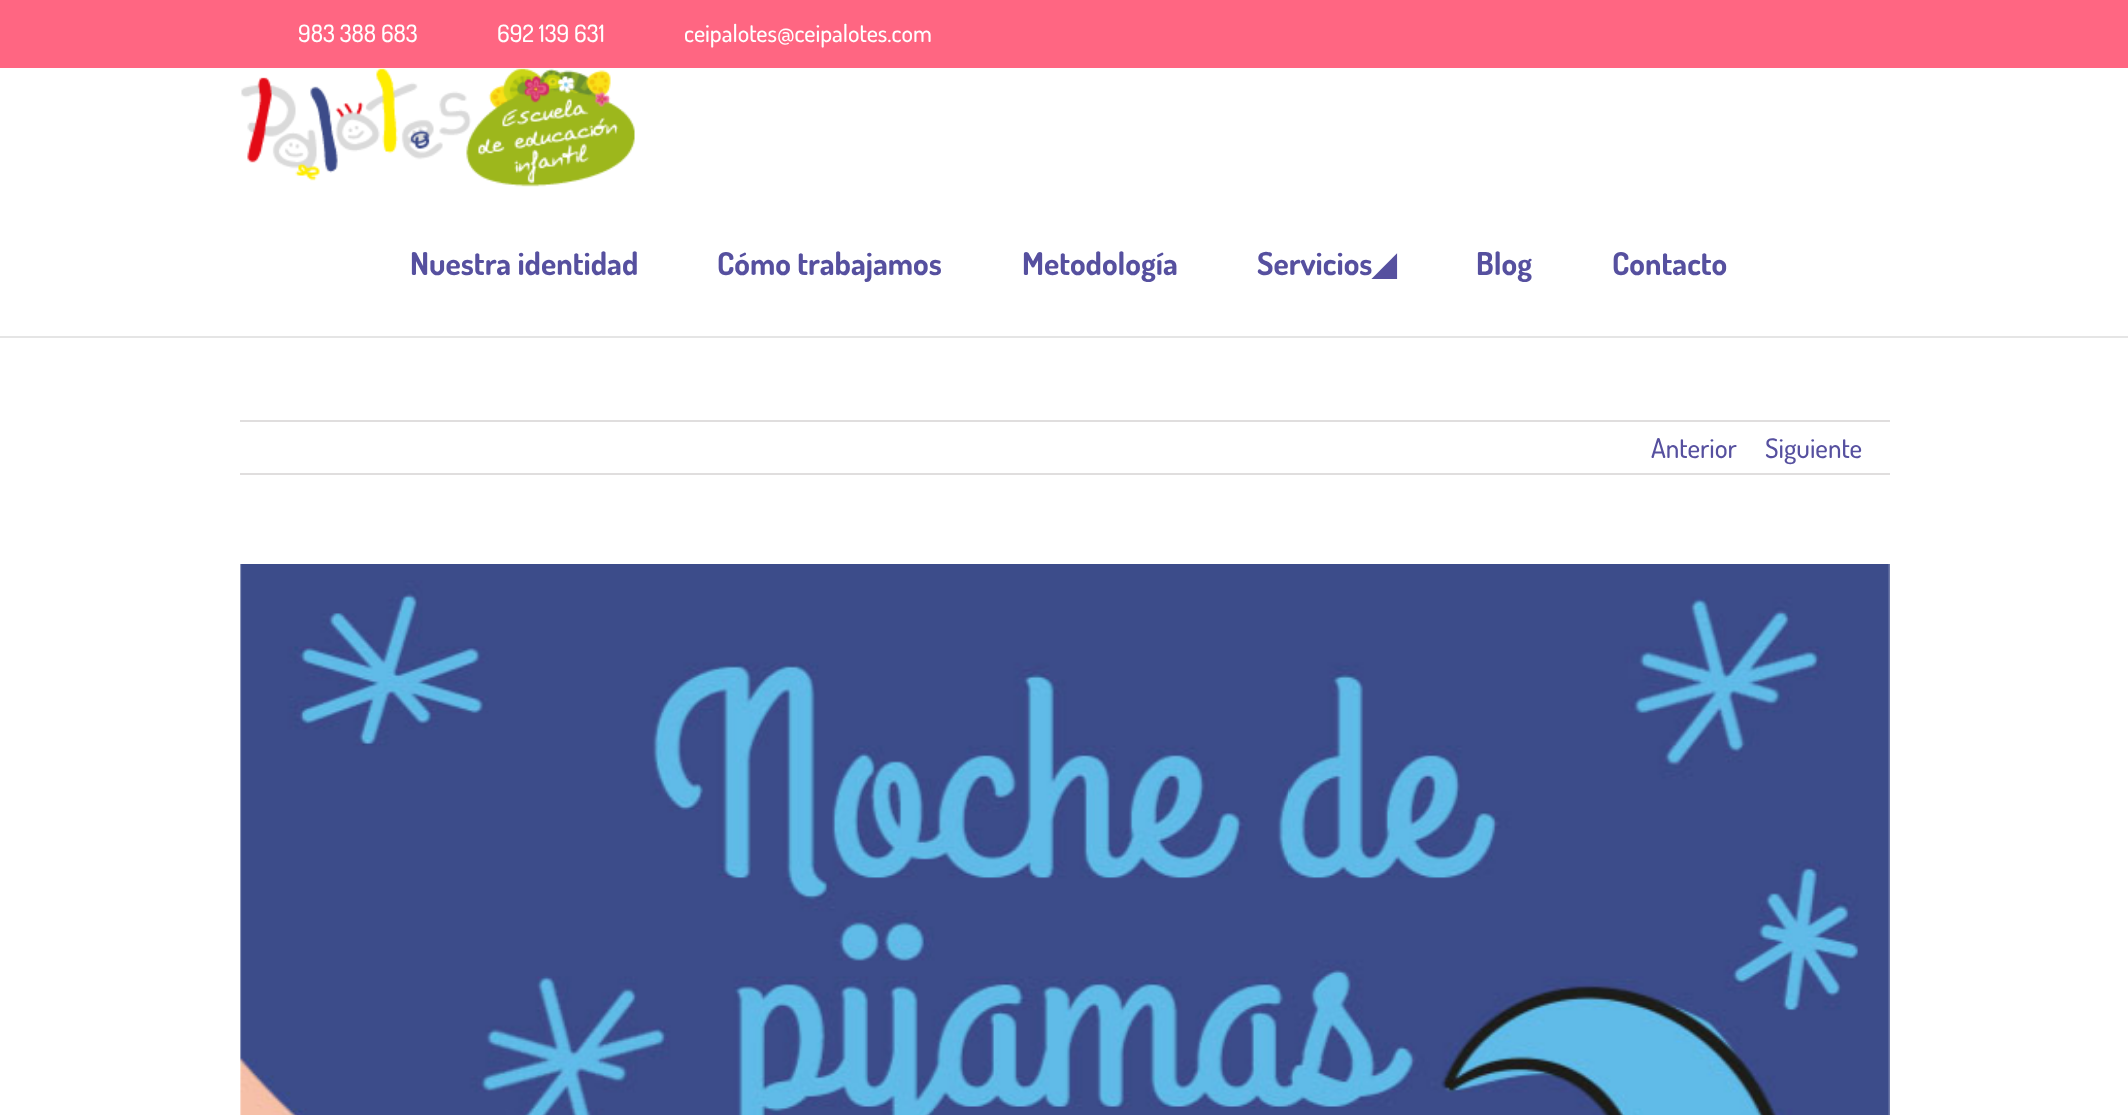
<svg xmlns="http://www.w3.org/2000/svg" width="2128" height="1115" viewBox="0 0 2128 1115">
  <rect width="100%" height="100%" fill="rgb(255,255,255)"/>
  <rect x="0" y="0" width="2128" height="68" fill="rgb(255,102,130)"/>
  <g font-family="Dosis" font-size="24" font-weight="500" fill="rgb(255,255,255)">
    <text x="298" y="42">983 388 683</text>
    <text x="497" y="42">692 139 631</text>
    <text x="684" y="42">ceipalotes@ceipalotes.com</text>
  </g>
  <rect x="0" y="336" width="2128" height="2" fill="rgb(229,229,229)"/>
  <image x="241" y="68" width="394" height="119" href="pic1.png"/>
  <g font-family="Dosis" font-size="31.5" font-weight="bold" fill="rgb(86,80,159)">
    <text x="410" y="275">Nuestra identidad</text>
    <text x="717" y="275">Cómo trabajamos</text>
    <text x="1022" y="275">Metodología</text>
    <text x="1257" y="275">Servicios</text>
  </g>
  <text x="1372" y="275" font-family="DejaVu Sans" font-size="31.5" font-weight="bold" fill="rgb(86,80,159)">◢</text>
  <g font-family="Dosis" font-size="31.5" font-weight="bold" fill="rgb(86,80,159)">
    <text x="1476" y="275">Blog</text>
    <text x="1612" y="275">Contacto</text>
  </g>
  <rect x="240" y="420" width="1650" height="2" fill="rgb(224,222,222)"/>
  <rect x="240" y="473" width="1650" height="2" fill="rgb(224,222,222)"/>
  <g font-family="Dosis" font-size="27" font-weight="500" fill="rgb(86,80,159)">
    <text x="1651" y="458">Anterior</text>
    <text x="1765" y="458">Siguiente</text>
  </g>
  <image x="240" y="564" width="1650" height="551" href="pic2.png"/>
</svg>
